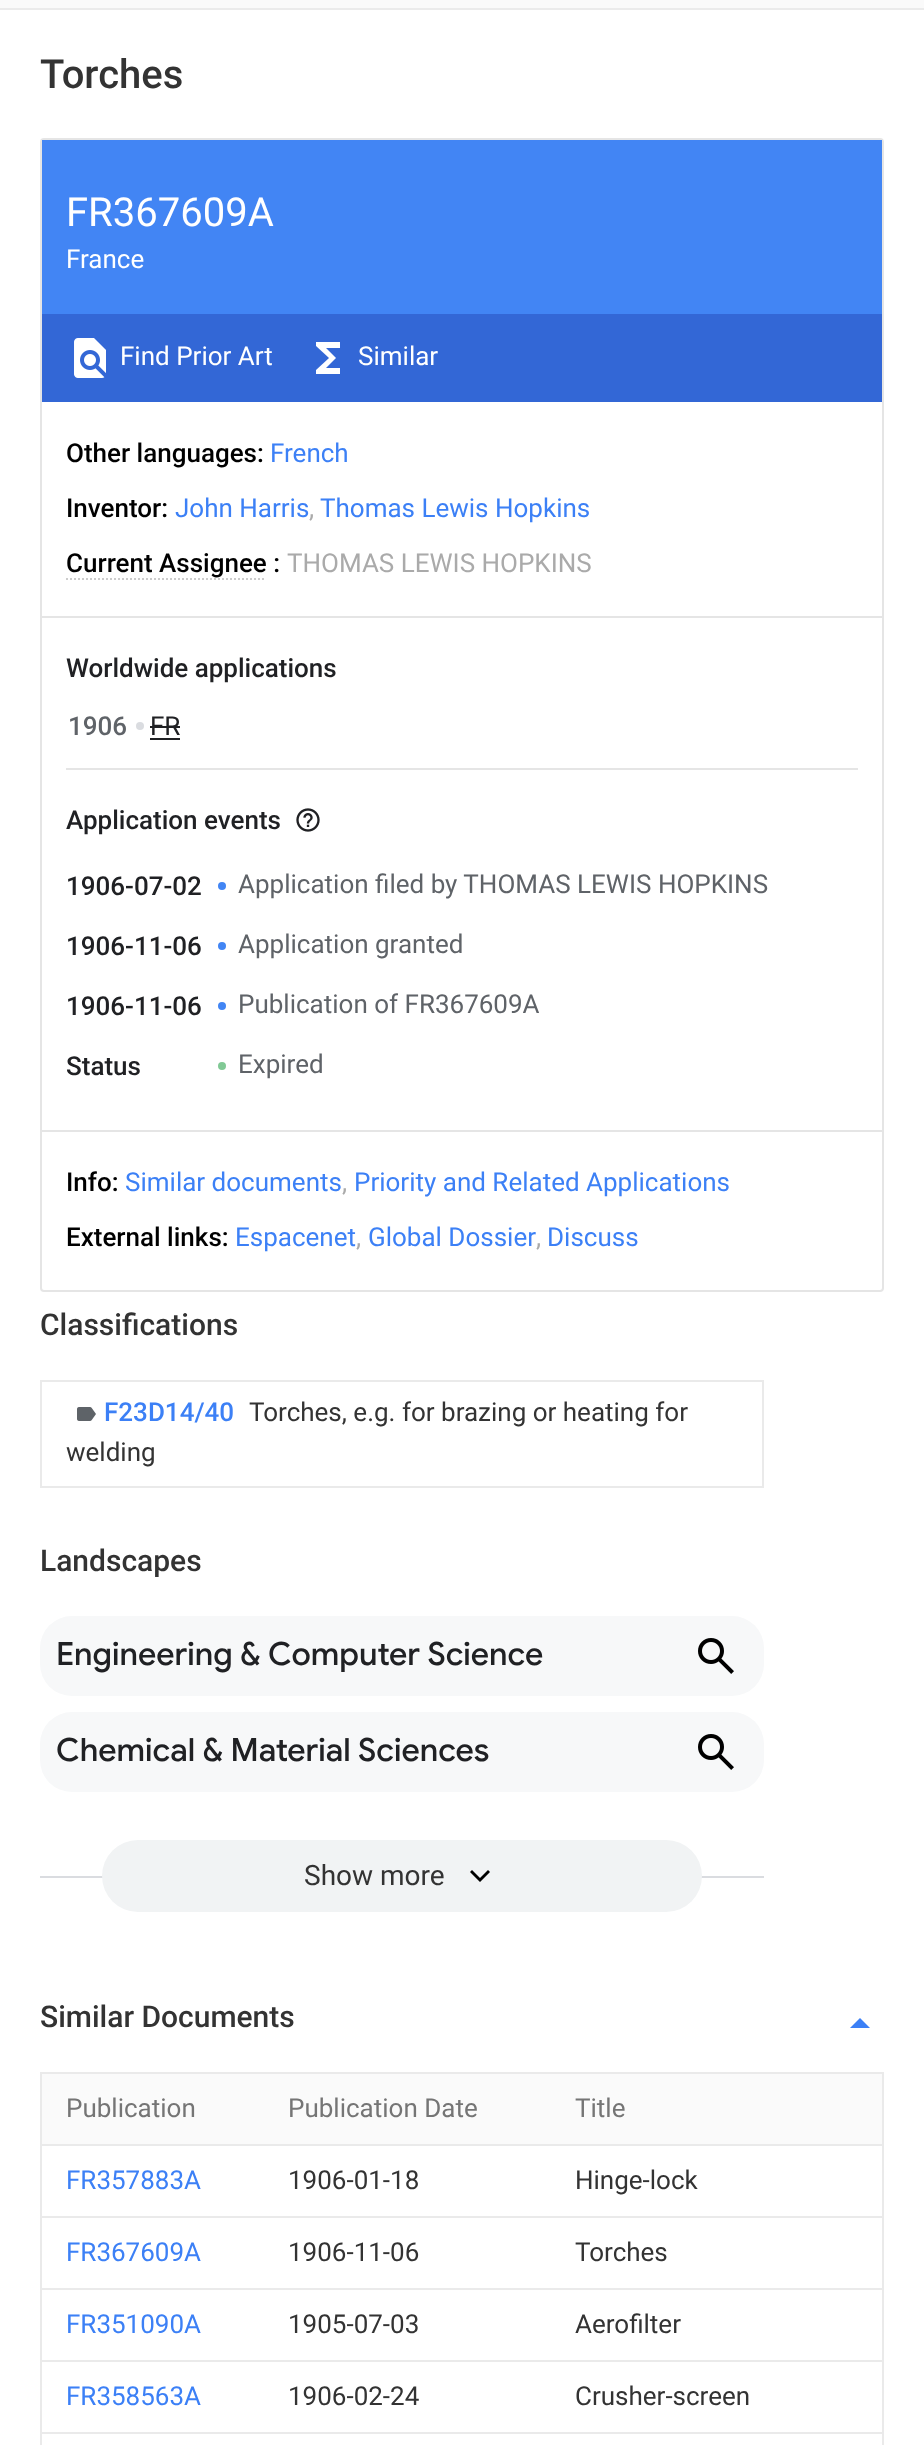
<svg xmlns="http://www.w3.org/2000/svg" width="924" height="2445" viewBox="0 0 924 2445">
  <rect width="100%" height="100%" fill="rgb(255,255,255)"/>
  <rect x="0" y="0" width="924" height="8" fill="rgb(250,250,250)"/>
  <rect x="0" y="8" width="924" height="2" fill="rgb(235,235,235)"/>
  <text x="40" y="88" font-family="Roboto" font-size="40" font-weight="500" fill="rgb(51,51,51)">Torches</text>
  <rect x="41" y="139" width="842" height="1152" rx="3" fill="none" stroke="rgb(229,229,229)" stroke-width="2"/>
  <rect x="42" y="140" width="840" height="174" fill="rgb(66,133,244)"/>
  <text x="66" y="226" font-family="Roboto" font-size="40" fill="rgb(255,255,255)">FR367609A</text>
  <text x="66" y="268" font-family="Roboto" font-size="26" fill="rgb(255,255,255)">France</text>
  <rect x="42" y="314" width="840" height="88" fill="rgb(51,103,214)"/>
  <image x="74" y="338" width="32" height="40" href="pic1.png"/>
  <text x="120" y="365" font-family="Roboto" font-size="26" fill="rgb(255,255,255)">Find Prior Art</text>
  <image x="316" y="342" width="24" height="32" href="pic2.png"/>
  <text x="358" y="365" font-family="Roboto" font-size="26" fill="rgb(255,255,255)">Similar</text>
  <text x="66" y="462" font-family="Roboto" font-size="26" font-weight="500" fill="rgb(0,0,0)">Other languages:</text>
  <text x="270" y="462" font-family="Roboto" font-size="26" fill="rgb(60,128,246)">French</text>
  <text x="66" y="517" font-family="Roboto" font-size="26" font-weight="500" fill="rgb(0,0,0)">Inventor:</text>
  <text x="175" y="517" font-family="Roboto" font-size="26" fill="rgb(60,128,246)">John Harris</text>
  <text x="309" y="517" font-family="Roboto" font-size="26" fill="rgb(170,170,170)">,</text>
  <text x="320" y="517" font-family="Roboto" font-size="26" fill="rgb(60,128,246)">Thomas Lewis Hopkins</text>
  <text x="66" y="572" font-family="Roboto" font-size="26" font-weight="500" fill="rgb(0,0,0)">Current Assignee :</text>
  <path d="M66 579H266" fill="none" stroke="rgb(204,204,204)" stroke-width="2" stroke-dasharray="2 2"/>
  <text x="287" y="572" font-family="Roboto" font-size="26" fill="rgb(170,170,170)">THOMAS LEWIS HOPKINS</text>
  <rect x="42" y="616" width="840" height="2" fill="rgb(229,229,229)"/>
  <text x="66" y="677" font-family="Roboto" font-size="26" font-weight="500" fill="rgb(32,33,36)">Worldwide applications</text>
  <text x="68" y="735" font-family="Roboto" font-size="26" font-weight="500" fill="rgb(95,99,104)">1906</text>
  <circle cx="140" cy="726" r="4" fill="rgb(218,220,224)"/>
  <text x="150" y="735" font-family="Roboto" font-size="26" fill="rgb(32,33,36)">FR</text>
  <rect x="150" y="738" width="30" height="2" fill="rgb(32,33,36)"/>
  <rect x="150" y="726" width="30" height="2" fill="rgb(32,33,36)"/>
  <rect x="66" y="768" width="792" height="2" fill="rgb(229,229,229)"/>
  <text x="66" y="829" font-family="Roboto" font-size="26" font-weight="500" fill="rgb(32,33,36)">Application events</text>
  <image x="296" y="808" width="24" height="24" href="pic3.png"/>
  <text x="66" y="895" font-family="Roboto" font-size="26" font-weight="500" fill="rgb(32,33,36)">1906-07-02</text>
  <circle cx="222" cy="886" r="4" fill="rgb(66,133,244)"/>
  <text x="238" y="893" font-family="Roboto" font-size="26" fill="rgb(95,99,104)">Application filed by THOMAS LEWIS HOPKINS</text>
  <text x="66" y="955" font-family="Roboto" font-size="26" font-weight="500" fill="rgb(32,33,36)">1906-11-06</text>
  <circle cx="222" cy="946" r="4" fill="rgb(66,133,244)"/>
  <text x="238" y="953" font-family="Roboto" font-size="26" fill="rgb(95,99,104)">Application granted</text>
  <text x="66" y="1015" font-family="Roboto" font-size="26" font-weight="500" fill="rgb(32,33,36)">1906-11-06</text>
  <circle cx="222" cy="1006" r="4" fill="rgb(66,133,244)"/>
  <text x="238" y="1013" font-family="Roboto" font-size="26" fill="rgb(95,99,104)">Publication of FR367609A</text>
  <text x="66" y="1075" font-family="Roboto" font-size="26" font-weight="500" fill="rgb(32,33,36)">Status</text>
  <circle cx="222" cy="1066" r="4" fill="rgb(129,201,149)"/>
  <text x="238" y="1073" font-family="Roboto" font-size="26" fill="rgb(95,99,104)">Expired</text>
  <rect x="42" y="1130" width="840" height="2" fill="rgb(229,229,229)"/>
  <text x="66" y="1191" font-family="Roboto" font-size="26" font-weight="500" fill="rgb(0,0,0)">Info:</text>
  <text x="125" y="1191" font-family="Roboto" font-size="26" fill="rgb(60,128,246)">Similar documents</text>
  <text x="342" y="1191" font-family="Roboto" font-size="26" fill="rgb(170,170,170)">,</text>
  <text x="354" y="1191" font-family="Roboto" font-size="26" fill="rgb(60,128,246)">Priority and Related Applications</text>
  <text x="66" y="1246" font-family="Roboto" font-size="26" font-weight="500" fill="rgb(0,0,0)">External links:</text>
  <text x="235" y="1246" font-family="Roboto" font-size="26" fill="rgb(60,128,246)">Espacenet</text>
  <text x="356" y="1246" font-family="Roboto" font-size="26" fill="rgb(170,170,170)">,</text>
  <text x="368" y="1246" font-family="Roboto" font-size="26" fill="rgb(60,128,246)">Global Dossier</text>
  <text x="536" y="1246" font-family="Roboto" font-size="26" fill="rgb(170,170,170)">,</text>
  <text x="547" y="1246" font-family="Roboto" font-size="26" fill="rgb(60,128,246)">Discuss</text>
  <text x="40" y="1335" font-family="Roboto" font-size="30" font-weight="500" fill="rgb(51,51,51)">Classifications</text>
  <rect x="41" y="1381" width="722" height="106" fill="none" stroke="rgb(234,234,234)" stroke-width="2"/>
  <image x="77" y="1407" width="19" height="14" href="pic4.png"/>
  <text x="104" y="1421" font-family="Roboto" font-size="26" font-weight="500" fill="rgb(60,128,246)">F23D14/40</text>
  <g font-family="Roboto" font-size="26" fill="rgb(51,51,51)">
    <text x="249" y="1421">Torches, e.g. for brazing or heating for</text>
    <text x="66" y="1461">welding</text>
  </g>
  <text x="40" y="1571" font-family="Roboto" font-size="30" font-weight="500" fill="rgb(51,51,51)">Landscapes</text>
  <rect x="40" y="1616" width="724" height="80" rx="32" fill="rgb(247,248,249)"/>
  <text x="56" y="1665" font-family="Google Sans" font-size="32" font-weight="500" fill="rgb(32,33,36)">Engineering &amp; Computer Science</text>
  <image x="698" y="1638" width="36" height="36" href="pic5.png"/>
  <rect x="40" y="1712" width="724" height="80" rx="32" fill="rgb(247,248,249)"/>
  <text x="56" y="1761" font-family="Google Sans" font-size="32" font-weight="500" fill="rgb(32,33,36)">Chemical &amp; Material Sciences</text>
  <image x="698" y="1734" width="36" height="36" href="pic5.png"/>
  <rect x="40" y="1876" width="724" height="2" fill="rgb(218,220,224)"/>
  <rect x="102" y="1840" width="600" height="72" rx="36" fill="rgb(241,243,244)"/>
  <text x="304" y="1885" font-family="Roboto" font-size="28" fill="rgb(51,51,51)">Show more</text>
  <path d="M480 1882L470 1872L472 1870L480 1878L488 1870L490 1872Z" fill="rgb(0,0,0)"/>
  <text x="40" y="2027" font-family="Roboto" font-size="30" font-weight="500" fill="rgb(51,51,51)">Similar Documents</text>
  <path d="M850 2028L860 2018L870 2028Z" fill="rgb(60,128,246)"/>
  <rect x="40" y="2072" width="844" height="2" fill="rgb(234,234,234)"/>
  <rect x="882" y="2072" width="2" height="373" fill="rgb(234,234,234)"/>
  <rect x="40" y="2072" width="2" height="373" fill="rgb(234,234,234)"/>
  <rect x="40" y="2144" width="844" height="2" fill="rgb(234,234,234)"/>
  <rect x="42" y="2074" width="840" height="70" fill="rgb(250,250,250)"/>
  <g font-family="Roboto" font-size="26" fill="rgb(117,117,117)">
    <text x="66" y="2117">Publication</text>
    <text x="288" y="2117">Publication Date</text>
    <text x="575" y="2117">Title</text>
  </g>
  <rect x="40" y="2216" width="844" height="2" fill="rgb(234,234,234)"/>
  <text x="66" y="2189" font-family="Roboto" font-size="26" fill="rgb(60,128,246)">FR357883A</text>
  <g font-family="Roboto" font-size="26" fill="rgb(51,51,51)">
    <text x="288" y="2189">1906-01-18</text>
    <text x="575" y="2189">Hinge-lock</text>
  </g>
  <rect x="40" y="2288" width="844" height="2" fill="rgb(234,234,234)"/>
  <text x="66" y="2261" font-family="Roboto" font-size="26" fill="rgb(60,128,246)">FR367609A</text>
  <g font-family="Roboto" font-size="26" fill="rgb(51,51,51)">
    <text x="288" y="2261">1906-11-06</text>
    <text x="575" y="2261">Torches</text>
  </g>
  <rect x="40" y="2360" width="844" height="2" fill="rgb(234,234,234)"/>
  <text x="66" y="2333" font-family="Roboto" font-size="26" fill="rgb(60,128,246)">FR351090A</text>
  <g font-family="Roboto" font-size="26" fill="rgb(51,51,51)">
    <text x="288" y="2333">1905-07-03</text>
    <text x="575" y="2333">Aerofilter</text>
  </g>
  <rect x="40" y="2432" width="844" height="2" fill="rgb(234,234,234)"/>
  <text x="66" y="2405" font-family="Roboto" font-size="26" fill="rgb(60,128,246)">FR358563A</text>
  <g font-family="Roboto" font-size="26" fill="rgb(51,51,51)">
    <text x="288" y="2405">1906-02-24</text>
    <text x="575" y="2405">Crusher-screen</text>
  </g>
</svg>
